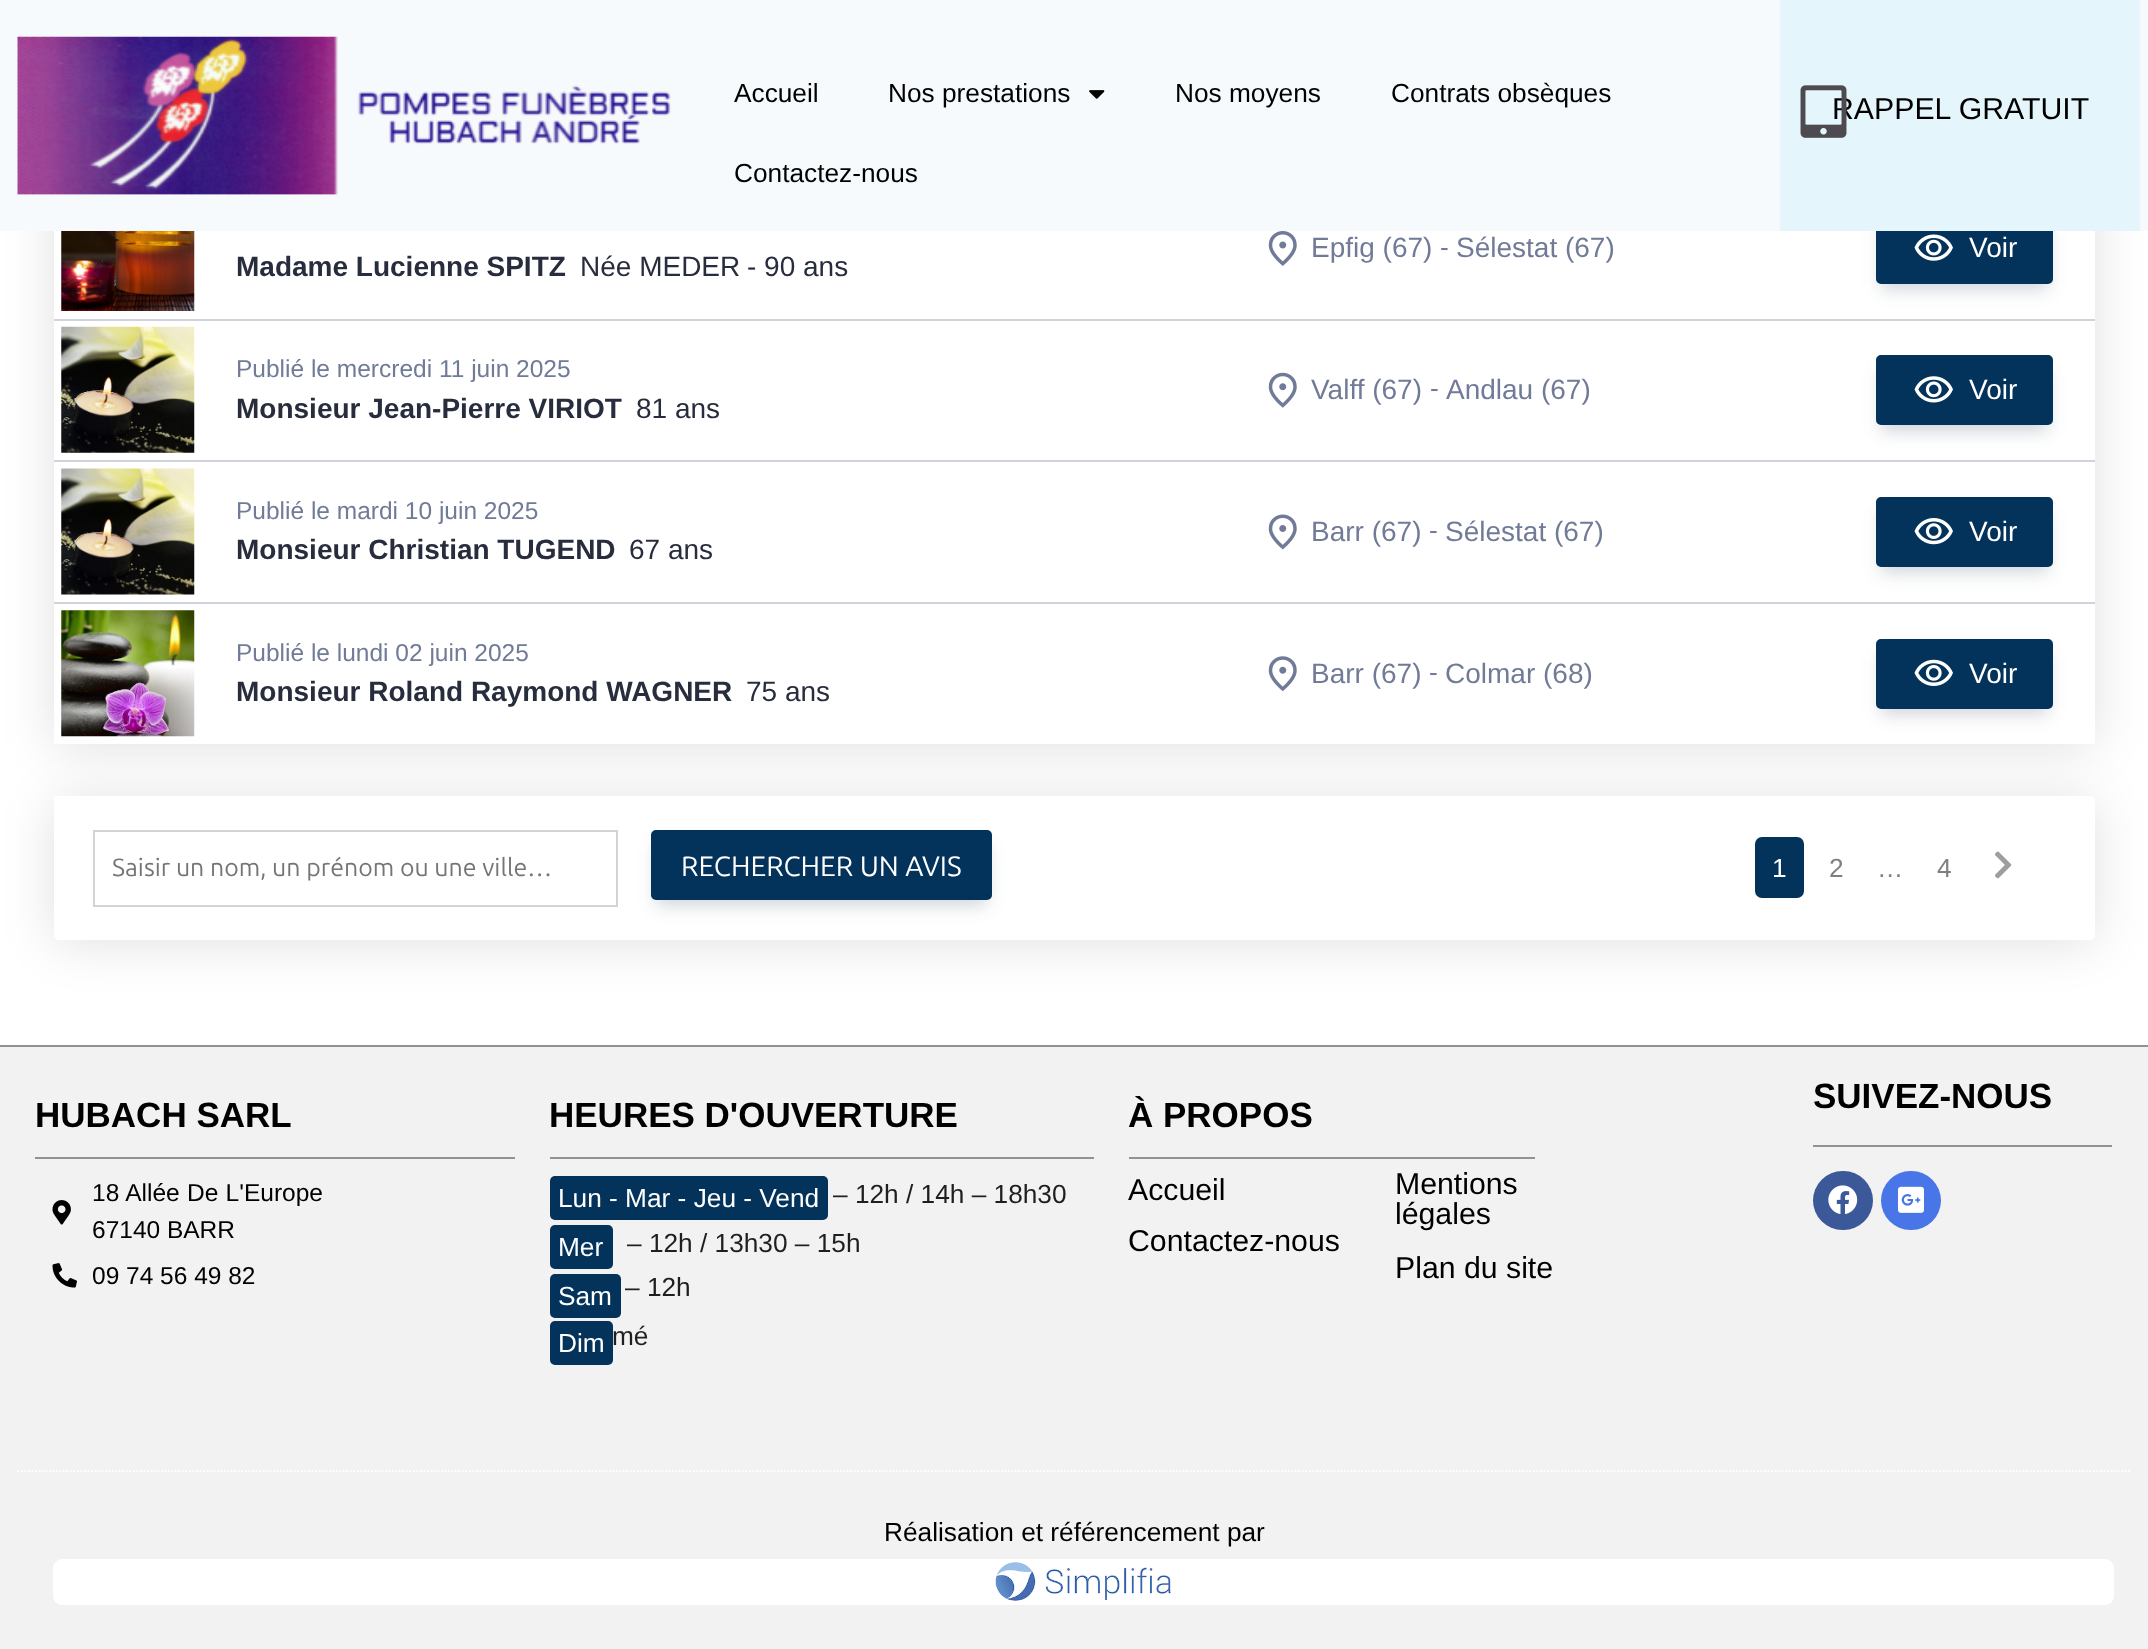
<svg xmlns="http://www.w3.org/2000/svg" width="2148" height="1649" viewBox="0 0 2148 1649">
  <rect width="100%" height="100%" fill="rgb(255,255,255)"/>
  <rect x="54" y="800" width="2041" height="143" rx="4" fill="rgba(0,0,0,0.12)" filter="blur(24.5px)"/>
  <path d="M54 796H2091C2093 796 2095 798 2095 800V936C2095 938 2093 940 2091 940H58C56 940 54 938 54 936Z" fill="rgb(255,255,255)"/>
  <rect x="54" y="-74" width="2041" height="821" fill="rgba(0,0,0,0.12)" filter="blur(24.5px)"/>
  <rect x="54" y="231" width="2041" height="513" fill="rgb(255,255,255)"/>
  <rect x="1881" y="229" width="167" height="60" fill="rgba(23,47,74,0.21)" filter="blur(9px)"/>
  <rect x="1877" y="215" width="175" height="68" rx="4" fill="rgb(3,50,90)" stroke="rgb(3,50,90)" stroke-width="2"/>
  <rect x="0" y="0" width="2148" height="231" fill="rgb(247,250,252)"/>
  <image x="17" y="36" width="654" height="159" href="pic1.png"/>
  <g font-family="Liberation Sans" font-size="26.25" fill="rgb(0,0,0)">
    <text x="734" y="102">Accueil</text>
    <text x="888" y="102">Nos prestations</text>
  </g>
  <image x="1089" y="90" width="16" height="9" href="pic2.png"/>
  <g font-family="Liberation Sans" font-size="26.25" fill="rgb(0,0,0)">
    <text x="1175" y="102">Nos moyens</text>
    <text x="1391" y="102">Contrats obsèques</text>
    <text x="734" y="182">Contactez-nous</text>
  </g>
  <rect x="1780" y="0" width="360" height="231" fill="rgb(228,245,251)"/>
  <text x="1832" y="119" font-family="Liberation Sans" font-size="30.25" fill="rgb(0,0,0)">RAPPEL GRATUIT</text>
  <image x="1800" y="85" width="47" height="53" href="pic3.png"/>
  <rect x="54" y="319" width="2041" height="2" fill="rgb(208,211,220)"/>
  <image x="1268" y="231" width="29" height="35" href="pic4.png"/>
  <text x="1311" y="257" font-family="Liberation Sans" font-size="28" fill="rgb(113,123,152)">Epfig (67)</text>
  <text x="1440" y="256" font-family="Liberation Sans" font-size="26.25" fill="rgb(113,123,152)">-</text>
  <text x="1456" y="257" font-family="Liberation Sans" font-size="28" fill="rgb(113,123,152)">Sélestat (67)</text>
  <image x="1914" y="234" width="39" height="27" href="pic5.png"/>
  <text x="1969" y="257" font-family="Liberation Sans" font-size="28" fill="rgb(255,255,255)">Voir</text>
  <image x="61" y="231" width="134" height="80" href="pic6.png"/>
  <text x="236" y="276" font-family="Liberation Sans" font-size="28" font-weight="bold" fill="rgb(40,45,62)">Madame Lucienne SPITZ</text>
  <g font-family="Liberation Sans" font-size="28" fill="rgb(40,45,62)">
    <text x="580" y="276">Née MEDER</text>
    <text x="747" y="276">- 90 ans</text>
  </g>
  <rect x="54" y="460" width="2041" height="2" fill="rgb(208,211,220)"/>
  <image x="61" y="326" width="134" height="127" href="pic7.png"/>
  <text x="236" y="377" font-family="Liberation Sans" font-size="24.5" fill="rgb(113,123,152)">Publié le mercredi 11 juin 2025</text>
  <text x="236" y="418" font-family="Liberation Sans" font-size="28" font-weight="bold" fill="rgb(40,45,62)">Monsieur Jean-Pierre VIRIOT</text>
  <text x="636" y="418" font-family="Liberation Sans" font-size="28" fill="rgb(40,45,62)">81 ans</text>
  <image x="1268" y="372" width="29" height="36" href="pic8.png"/>
  <text x="1311" y="399" font-family="Liberation Sans" font-size="28" fill="rgb(113,123,152)">Valff (67)</text>
  <text x="1430" y="397" font-family="Liberation Sans" font-size="26.25" fill="rgb(113,123,152)">-</text>
  <text x="1446" y="399" font-family="Liberation Sans" font-size="28" fill="rgb(113,123,152)">Andlau (67)</text>
  <rect x="1881" y="371" width="167" height="60" fill="rgba(23,47,74,0.21)" filter="blur(9px)"/>
  <rect x="1877" y="356" width="175" height="68" rx="4" fill="rgb(3,50,90)" stroke="rgb(3,50,90)" stroke-width="2"/>
  <image x="1914" y="376" width="39" height="27" href="pic9.png"/>
  <text x="1969" y="399" font-family="Liberation Sans" font-size="28" fill="rgb(255,255,255)">Voir</text>
  <rect x="54" y="602" width="2041" height="2" fill="rgb(208,211,220)"/>
  <image x="61" y="468" width="134" height="127" href="pic10.png"/>
  <text x="236" y="519" font-family="Liberation Sans" font-size="24.5" fill="rgb(113,123,152)">Publié le mardi 10 juin 2025</text>
  <text x="236" y="559" font-family="Liberation Sans" font-size="28" font-weight="bold" fill="rgb(40,45,62)">Monsieur Christian TUGEND</text>
  <text x="629" y="559" font-family="Liberation Sans" font-size="28" fill="rgb(40,45,62)">67 ans</text>
  <image x="1268" y="514" width="29" height="36" href="pic11.png"/>
  <text x="1311" y="541" font-family="Liberation Sans" font-size="28" fill="rgb(113,123,152)">Barr (67)</text>
  <text x="1429" y="539" font-family="Liberation Sans" font-size="26.25" fill="rgb(113,123,152)">-</text>
  <text x="1445" y="541" font-family="Liberation Sans" font-size="28" fill="rgb(113,123,152)">Sélestat (67)</text>
  <rect x="1881" y="513" width="167" height="59" fill="rgba(23,47,74,0.21)" filter="blur(9px)"/>
  <rect x="1877" y="498" width="175" height="68" rx="4" fill="rgb(3,50,90)" stroke="rgb(3,50,90)" stroke-width="2"/>
  <image x="1914" y="518" width="39" height="27" href="pic12.png"/>
  <text x="1969" y="541" font-family="Liberation Sans" font-size="28" fill="rgb(255,255,255)">Voir</text>
  <image x="61" y="610" width="134" height="127" href="pic13.png"/>
  <text x="236" y="661" font-family="Liberation Sans" font-size="24.5" fill="rgb(113,123,152)">Publié le lundi 02 juin 2025</text>
  <text x="236" y="701" font-family="Liberation Sans" font-size="28" font-weight="bold" fill="rgb(40,45,62)">Monsieur Roland Raymond WAGNER</text>
  <text x="746" y="701" font-family="Liberation Sans" font-size="28" fill="rgb(40,45,62)">75 ans</text>
  <image x="1268" y="656" width="29" height="36" href="pic14.png"/>
  <text x="1311" y="683" font-family="Liberation Sans" font-size="28" fill="rgb(113,123,152)">Barr (67)</text>
  <text x="1429" y="681" font-family="Liberation Sans" font-size="26.25" fill="rgb(113,123,152)">-</text>
  <text x="1445" y="683" font-family="Liberation Sans" font-size="28" fill="rgb(113,123,152)">Colmar (68)</text>
  <rect x="1881" y="655" width="167" height="59" fill="rgba(23,47,74,0.21)" filter="blur(9px)"/>
  <rect x="1877" y="640" width="175" height="68" rx="4" fill="rgb(3,50,90)" stroke="rgb(3,50,90)" stroke-width="2"/>
  <image x="1914" y="659" width="39" height="27" href="pic15.png"/>
  <text x="1969" y="683" font-family="Liberation Sans" font-size="28" fill="rgb(255,255,255)">Voir</text>
  <rect x="94" y="831" width="523" height="75" fill="none" stroke="rgb(211,211,211)" stroke-width="2"/>
  <text x="112" y="876" font-family="Ubuntu" font-size="24.9" fill="rgb(117,117,117)">Saisir un nom, un prénom ou une ville…</text>
  <rect x="656" y="845" width="331" height="60" fill="rgba(23,47,74,0.21)" filter="blur(9px)"/>
  <rect x="652" y="831" width="339" height="68" rx="4" fill="rgb(3,50,90)" stroke="rgb(3,50,90)" stroke-width="2"/>
  <text x="681" y="876" font-family="Ubuntu" font-size="28" fill="rgb(255,255,255)">RECHERCHER UN AVIS</text>
  <rect x="1755" y="837" width="49" height="61" rx="7" fill="rgb(3,50,90)"/>
  <text x="1772" y="877" font-family="Liberation Sans" font-size="26.25" fill="rgb(255,255,255)">1</text>
  <g font-family="Liberation Sans" font-size="26.25" fill="rgb(128,128,128)">
    <text x="1829" y="877">2</text>
    <text x="1877" y="877">…</text>
    <text x="1937" y="877">4</text>
  </g>
  <image x="1995" y="851" width="17" height="28" href="pic16.png"/>
  <rect x="0" y="1047" width="2148" height="602" fill="rgb(242,242,242)"/>
  <rect x="0" y="1045" width="2148" height="2" fill="rgb(146,146,146)"/>
  <text x="35" y="1127" font-family="Liberation Sans" font-size="35" font-weight="bold" fill="rgb(0,0,0)">HUBACH SARL</text>
  <rect x="35" y="1157" width="480" height="2" fill="rgb(146,146,146)"/>
  <image x="52" y="1200" width="19" height="25" href="pic17.png"/>
  <g font-family="Liberation Sans" font-size="24.5" fill="rgb(0,0,0)">
    <text>
      <tspan x="92" y="1201" word-spacing="0.5">18 Allée De L'Europe</tspan>
      <tspan x="92" y="1238">67140 BARR</tspan>
    </text>
  </g>
  <image x="52" y="1263" width="25" height="25" href="pic18.png"/>
  <text x="92" y="1284" font-family="Liberation Sans" font-size="24.5" fill="rgb(0,0,0)">09 74 56 49 82</text>
  <text x="549" y="1127" font-family="Liberation Sans" font-size="35" font-weight="bold" fill="rgb(0,0,0)">HEURES D'OUVERTURE</text>
  <rect x="550" y="1157" width="544" height="2" fill="rgb(146,146,146)"/>
  <rect x="550" y="1176" width="278" height="44" rx="5" fill="rgb(3,50,90)"/>
  <text x="558" y="1207" font-family="Liberation Sans" font-size="26.25" fill="rgb(255,255,255)">Lun - Mar - Jeu - Vend</text>
  <text x="833" y="1203" font-family="Liberation Sans" font-size="26.25" fill="rgb(31,31,31)">– 12h / 14h – 18h30</text>
  <rect x="550" y="1225" width="63" height="44" rx="5" fill="rgb(3,50,90)"/>
  <text x="558" y="1256" font-family="Liberation Sans" font-size="26.25" fill="rgb(255,255,255)">Mer</text>
  <text x="627" y="1252" font-family="Liberation Sans" font-size="26.25" fill="rgb(31,31,31)">– 12h / 13h30 – 15h</text>
  <rect x="550" y="1274" width="71" height="44" rx="5" fill="rgb(3,50,90)"/>
  <text x="558" y="1305" font-family="Liberation Sans" font-size="26.25" fill="rgb(255,255,255)">Sam</text>
  <text x="625" y="1296" font-family="Liberation Sans" font-size="26.25" fill="rgb(31,31,31)">– 12h</text>
  <rect x="550" y="1321" width="63" height="44" rx="5" fill="rgb(3,50,90)"/>
  <text x="558" y="1352" font-family="Liberation Sans" font-size="26.25" fill="rgb(255,255,255)">Dim</text>
  <text x="612" y="1345" font-family="Liberation Sans" font-size="26.25" fill="rgb(31,31,31)">mé</text>
  <text x="1128" y="1127" font-family="Liberation Sans" font-size="35" font-weight="bold" fill="rgb(0,0,0)">À PROPOS</text>
  <rect x="1129" y="1157" width="406" height="2" fill="rgb(146,146,146)"/>
  <g font-family="Liberation Sans" font-size="30.25" fill="rgb(0,0,0)">
    <text>
      <tspan x="1128" y="1200">Accueil</tspan>
      <tspan x="1128" y="1251">Contactez-nous</tspan>
    </text>
    <text>
      <tspan x="1395" y="1194">Mentions</tspan>
      <tspan x="1395" y="1224">légales</tspan>
      <tspan x="1395" y="1278">Plan du site</tspan>
    </text>
  </g>
  <text x="1813" y="1108" font-family="Liberation Sans" font-size="35" font-weight="bold" fill="rgb(0,0,0)">SUIVEZ-NOUS</text>
  <rect x="1813" y="1145" width="299" height="2" fill="rgb(146,146,146)"/>
  <rect x="1813" y="1171" width="60" height="59" rx="29.5" fill="rgb(59,89,152)"/>
  <image x="1828" y="1185" width="30" height="29" href="pic19.png"/>
  <rect x="1881" y="1171" width="60" height="59" rx="29.5" fill="rgb(72,118,233)"/>
  <image x="1898" y="1186" width="26" height="27" href="pic20.png"/>
  <path d="M17.5 1471H2131.5" fill="none" stroke="rgb(255,255,255)" stroke-width="1.8" stroke-dasharray="1.75 1.75"/>
  <text x="884" y="1541" font-family="Liberation Sans" font-size="26.25" fill="rgb(0,0,0)">Réalisation et référencement par</text>
  <rect x="53" y="1559" width="2061" height="46" rx="9" fill="rgb(255,255,255)"/>
  <image x="995" y="1562" width="176" height="39" href="pic21.png"/>
</svg>
